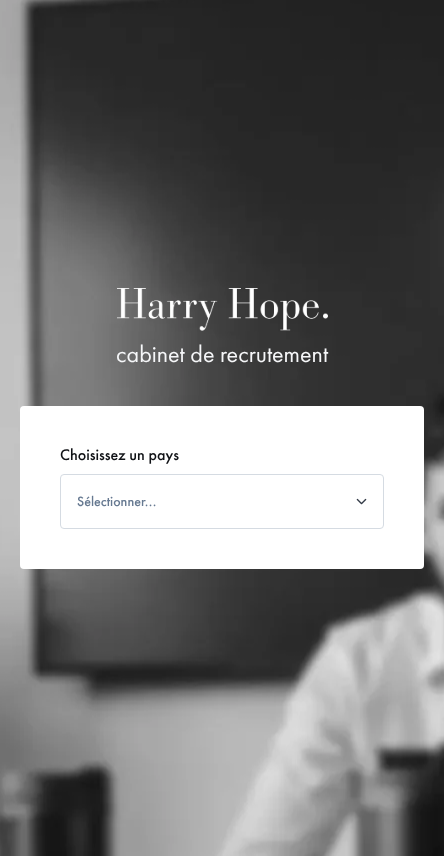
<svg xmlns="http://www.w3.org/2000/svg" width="444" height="856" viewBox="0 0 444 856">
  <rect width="100%" height="100%" fill="rgb(255,255,255)"/>
  <image x="0" y="0" width="444" height="856" href="pic1.png"/>
  <image x="117" y="288" width="211" height="43" href="pic2.png"/>
  <text x="116" y="362" font-family="Futura PT" font-size="24" fill="rgb(246,247,249)">cabinet de recrutement</text>
  <rect x="20" y="406" width="404" height="163" rx="4" fill="rgb(255,255,255)"/>
  <text x="60" y="460" font-family="Futura PT" font-size="16" font-weight="500" fill="rgb(16,18,22)">Choisissez un pays</text>
  <rect x="60.5" y="474.5" width="323" height="54" rx="3.5" fill="none" stroke="rgb(213,219,226)"/>
  <text x="77" y="506" font-family="Futura PT" font-size="14" font-weight="500" fill="rgb(102,121,145)">Sélectionner...</text>
  <image x="356" y="498" width="11" height="7" href="pic3.png"/>
</svg>
